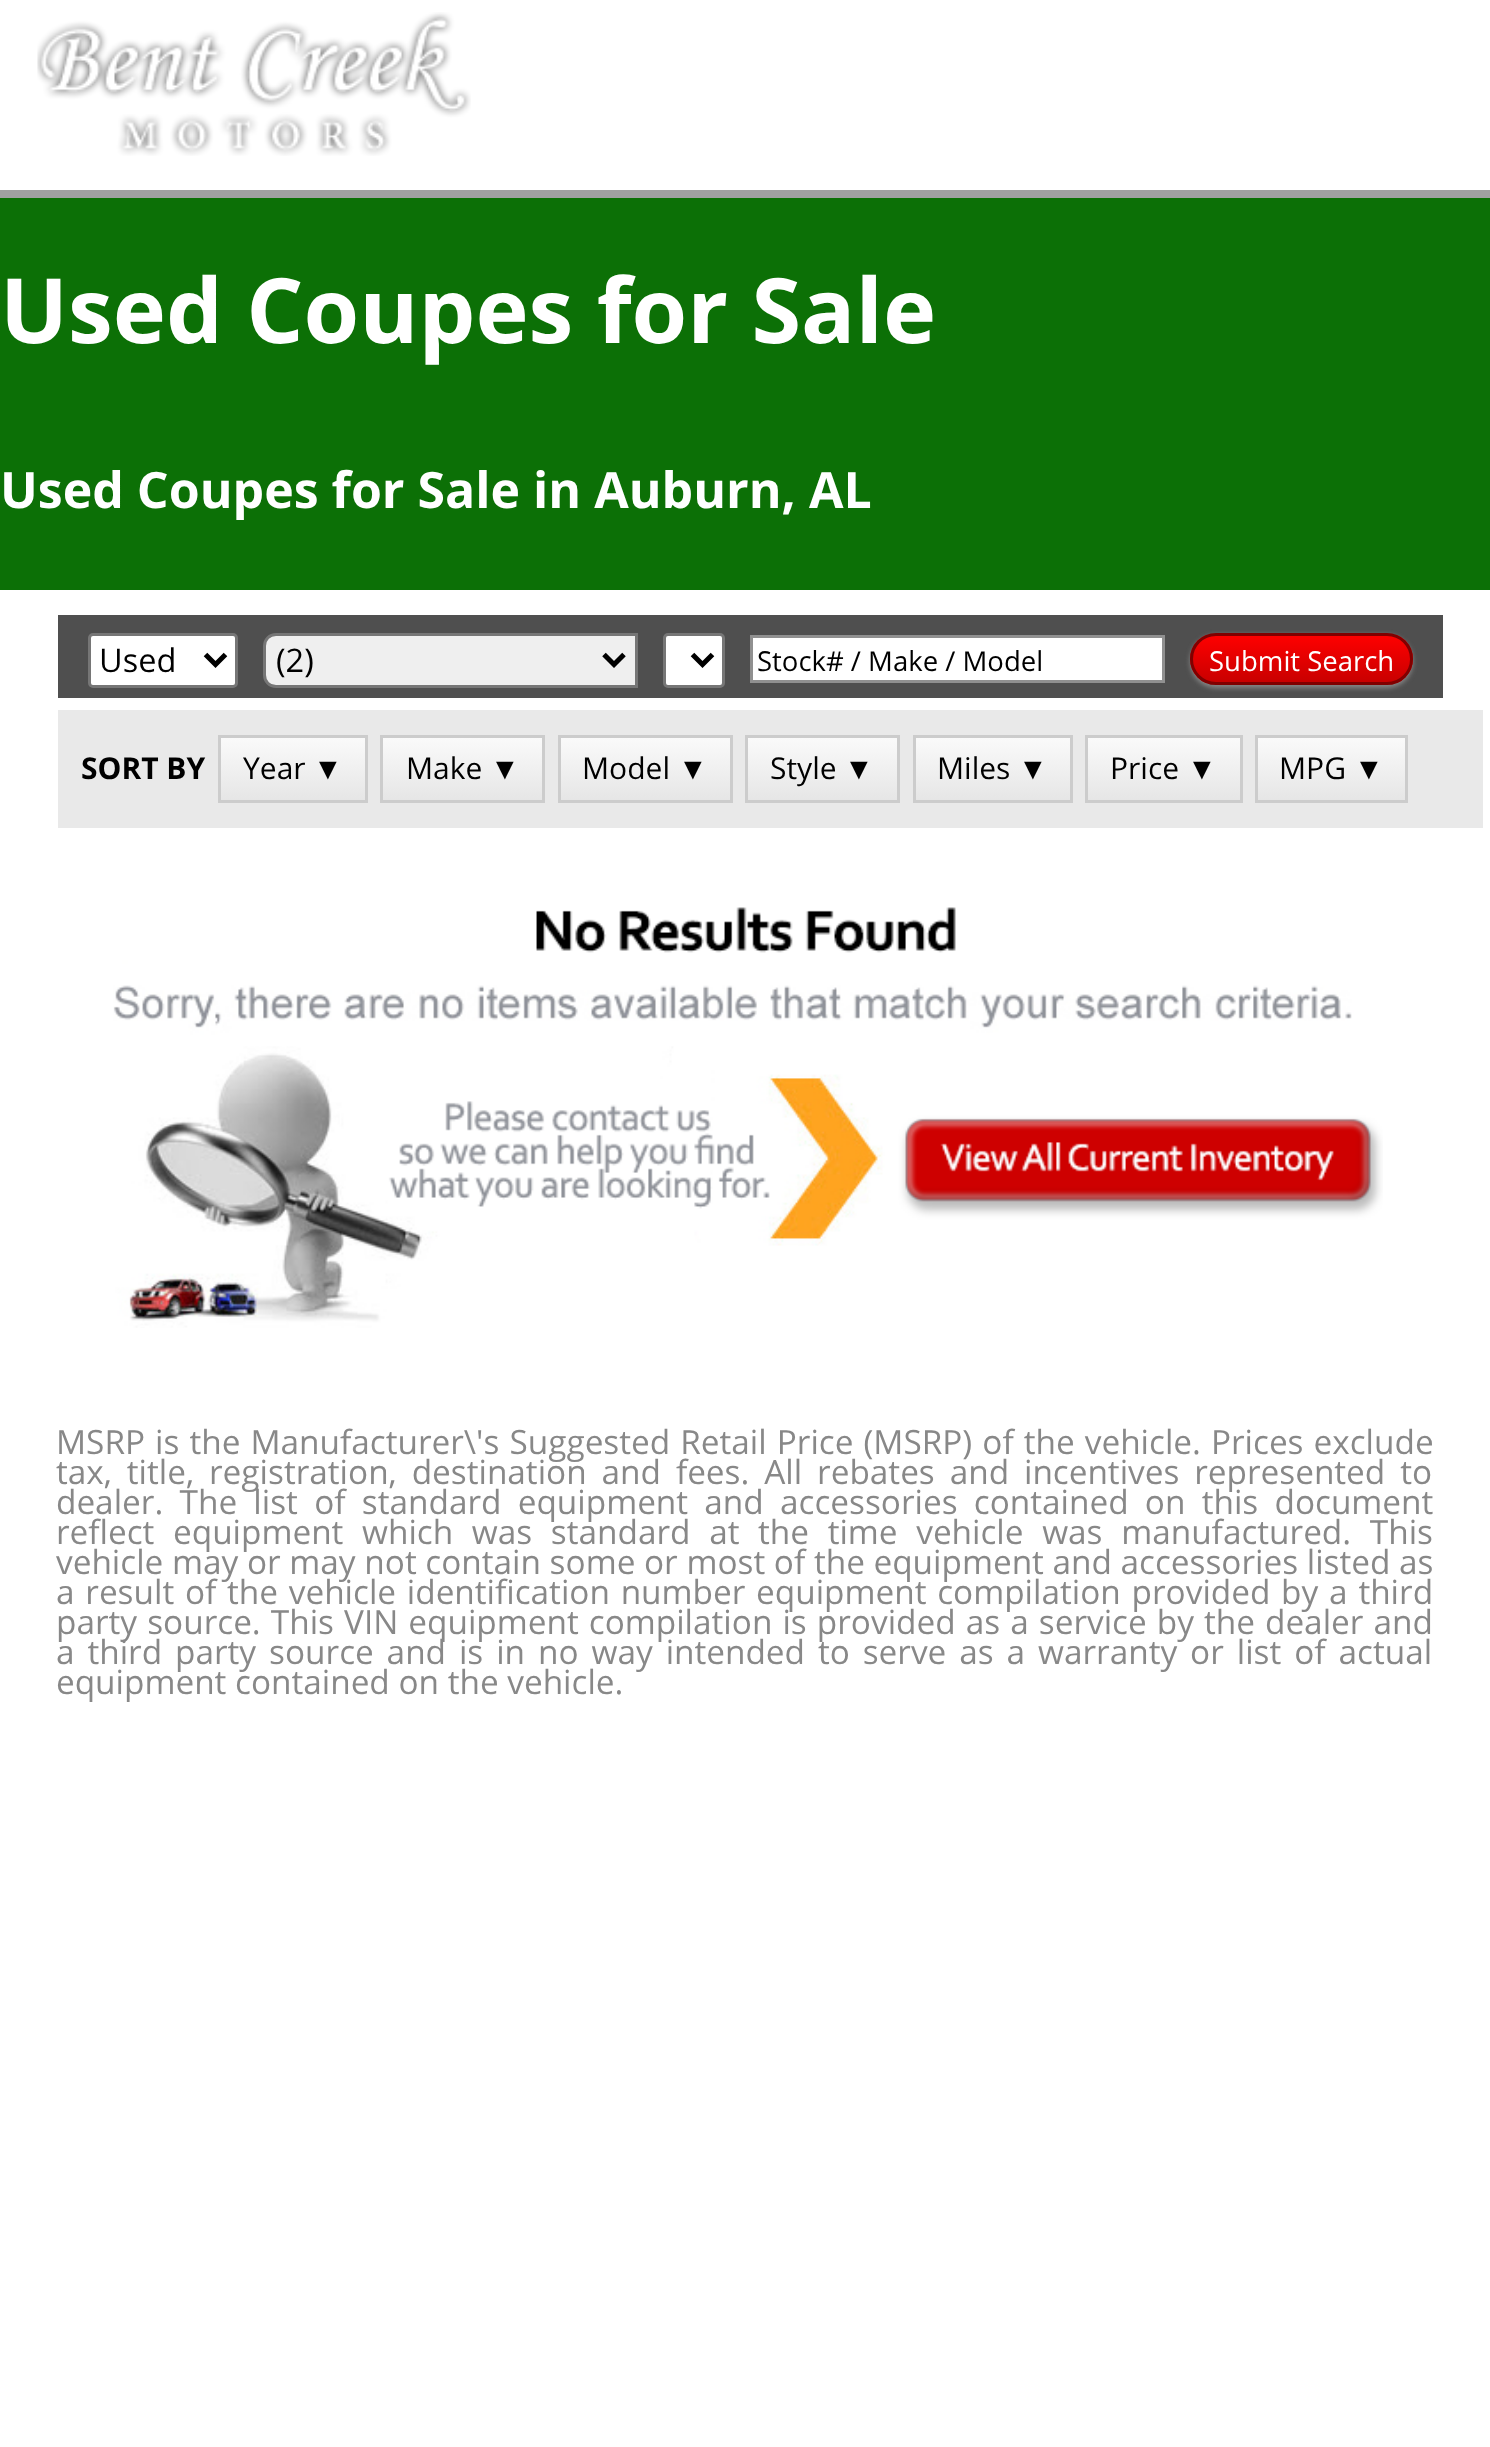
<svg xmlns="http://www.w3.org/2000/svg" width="1490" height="2447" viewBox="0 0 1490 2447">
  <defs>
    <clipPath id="clip1"><rect x="1190" y="633" width="223" height="52" rx="26"/></clipPath>
    <linearGradient id="g1" gradientUnits="userSpaceOnUse" x1="1301" y1="635" x2="1301" y2="683"><stop offset="0" stop-color="rgb(255,0,0)"/><stop offset="1" stop-color="rgb(200,0,0)"/></linearGradient>
    <linearGradient id="g2" gradientUnits="userSpaceOnUse" x1="293" y1="738" x2="293" y2="800"><stop offset="0" stop-color="rgb(250,250,250)"/><stop offset="1" stop-color="rgb(230,230,230)"/></linearGradient>
    <linearGradient id="g3" gradientUnits="userSpaceOnUse" x1="463" y1="738" x2="463" y2="800"><stop offset="0" stop-color="rgb(250,250,250)"/><stop offset="1" stop-color="rgb(230,230,230)"/></linearGradient>
    <linearGradient id="g4" gradientUnits="userSpaceOnUse" x1="645" y1="738" x2="645" y2="800"><stop offset="0" stop-color="rgb(250,250,250)"/><stop offset="1" stop-color="rgb(230,230,230)"/></linearGradient>
    <linearGradient id="g5" gradientUnits="userSpaceOnUse" x1="823" y1="738" x2="823" y2="800"><stop offset="0" stop-color="rgb(250,250,250)"/><stop offset="1" stop-color="rgb(230,230,230)"/></linearGradient>
    <linearGradient id="g6" gradientUnits="userSpaceOnUse" x1="993" y1="738" x2="993" y2="800"><stop offset="0" stop-color="rgb(250,250,250)"/><stop offset="1" stop-color="rgb(230,230,230)"/></linearGradient>
    <linearGradient id="g7" gradientUnits="userSpaceOnUse" x1="1164" y1="738" x2="1164" y2="800"><stop offset="0" stop-color="rgb(250,250,250)"/><stop offset="1" stop-color="rgb(230,230,230)"/></linearGradient>
    <linearGradient id="g8" gradientUnits="userSpaceOnUse" x1="1331" y1="738" x2="1331" y2="800"><stop offset="0" stop-color="rgb(250,250,250)"/><stop offset="1" stop-color="rgb(230,230,230)"/></linearGradient>
  </defs>
  <rect width="100%" height="100%" fill="rgb(255,255,255)"/>
  <rect x="0" y="190" width="1490" height="8" fill="rgb(161,161,161)"/>
  <image x="37" y="12" width="434" height="144" href="pic1.png"/>
  <rect x="0" y="198" width="1490" height="392" fill="rgb(12,112,6)"/>
  <text x="0" y="343" font-family="Open Sans" font-size="90" font-weight="bold" fill="rgb(255,255,255)">Used Coupes for Sale</text>
  <text x="0" y="508" font-family="Open Sans" font-size="50" font-weight="bold" fill="rgb(255,255,255)">Used Coupes for Sale in Auburn, AL</text>
  <rect x="58" y="615" width="1385" height="83" fill="rgb(79,79,79)"/>
  <rect x="89.5" y="634.5" width="147" height="52" rx="3.5" fill="rgb(255,255,255)" stroke="rgb(118,118,118)" stroke-width="3"/>
  <path d="M205.5 654.5L215.5 664.5L225.5 654.5" fill="none" stroke="rgb(0,0,0)" stroke-width="5"/>
  <text x="99" y="672" font-family="Open Sans" font-size="32.5" fill="rgb(0,0,0)">Used</text>
  <path d="M276 634.5H636.5V686.5H276C269.5 686.5 264.5 681.5 264.5 675V646C264.5 639.5 269.5 634.5 276 634.5Z" fill="rgb(239,239,239)" stroke="rgb(118,118,118)" stroke-width="3"/>
  <path d="M604 654.5L614 664.5L624 654.5" fill="none" stroke="rgb(0,0,0)" stroke-width="5"/>
  <text x="276" y="672" font-family="Open Sans" font-size="32.5" fill="rgb(0,0,0)">(2)</text>
  <rect x="664.5" y="634.5" width="59" height="52" rx="3.5" fill="rgb(255,255,255)" stroke="rgb(118,118,118)" stroke-width="3"/>
  <path d="M692.5 654.5L702.5 664.5L712.5 654.5" fill="none" stroke="rgb(0,0,0)" stroke-width="5"/>
  <rect x="751.5" y="636.5" width="412" height="45" fill="rgb(255,255,255)" stroke="rgb(144,144,144)" stroke-width="3"/>
  <text x="757" y="671" font-family="Open Sans" font-size="27.5" fill="rgb(0,0,0)">Stock# / Make / Model</text>
  <rect x="1190" y="635" width="223" height="53" rx="26.5" fill="rgb(136,136,136)" filter="blur(2.5px)"/>
  <g clip-path="url(#clip1)">
    <rect x="1190" y="635" width="223" height="48" fill="url(#g1)"/>
  </g>
  <rect x="1191.5" y="634.5" width="220" height="49" rx="24.5" fill="none" stroke="rgb(128,0,0)" stroke-width="3"/>
  <text x="1209" y="671" font-family="Open Sans" font-size="27.5" fill="rgb(255,255,255)">Submit Search</text>
  <rect x="58" y="710" width="1425" height="118" fill="rgb(233,233,233)"/>
  <text x="81" y="779" font-family="Open Sans" font-size="30" font-weight="bold" fill="rgb(0,0,0)">SORT BY</text>
  <rect x="221" y="738" width="144" height="62" fill="url(#g2)"/>
  <rect x="219.5" y="736.5" width="147" height="65" fill="none" stroke="rgb(204,204,204)" stroke-width="3"/>
  <text x="243" y="779" font-family="Open Sans" font-size="30" fill="rgb(0,0,0)">Year</text>
  <text x="313" y="779" font-family="Liberation Sans" font-size="30" fill="rgb(0,0,0)">▼</text>
  <rect x="383" y="738" width="159" height="62" fill="url(#g3)"/>
  <rect x="381.5" y="736.5" width="162" height="65" fill="none" stroke="rgb(204,204,204)" stroke-width="3"/>
  <text x="406" y="779" font-family="Open Sans" font-size="30" fill="rgb(0,0,0)">Make</text>
  <text x="490" y="779" font-family="Liberation Sans" font-size="30" fill="rgb(0,0,0)">▼</text>
  <rect x="561" y="738" width="169" height="62" fill="url(#g4)"/>
  <rect x="559.5" y="736.5" width="172" height="65" fill="none" stroke="rgb(204,204,204)" stroke-width="3"/>
  <text x="582" y="779" font-family="Open Sans" font-size="30" fill="rgb(0,0,0)">Model</text>
  <text x="678" y="779" font-family="Liberation Sans" font-size="30" fill="rgb(0,0,0)">▼</text>
  <rect x="748" y="738" width="149" height="62" fill="url(#g5)"/>
  <rect x="746.5" y="736.5" width="152" height="65" fill="none" stroke="rgb(204,204,204)" stroke-width="3"/>
  <text x="770" y="779" font-family="Open Sans" font-size="30" fill="rgb(0,0,0)">Style</text>
  <text x="844" y="779" font-family="Liberation Sans" font-size="30" fill="rgb(0,0,0)">▼</text>
  <rect x="916" y="738" width="154" height="62" fill="url(#g6)"/>
  <rect x="914.5" y="736.5" width="157" height="65" fill="none" stroke="rgb(204,204,204)" stroke-width="3"/>
  <text x="937" y="779" font-family="Open Sans" font-size="30" fill="rgb(0,0,0)">Miles</text>
  <text x="1018" y="779" font-family="Liberation Sans" font-size="30" fill="rgb(0,0,0)">▼</text>
  <rect x="1088" y="738" width="152" height="62" fill="url(#g7)"/>
  <rect x="1086.5" y="736.5" width="155" height="65" fill="none" stroke="rgb(204,204,204)" stroke-width="3"/>
  <text x="1110" y="779" font-family="Open Sans" font-size="30" fill="rgb(0,0,0)">Price</text>
  <text x="1187" y="779" font-family="Liberation Sans" font-size="30" fill="rgb(0,0,0)">▼</text>
  <rect x="1258" y="738" width="147" height="62" fill="url(#g8)"/>
  <rect x="1256.5" y="736.5" width="150" height="65" fill="none" stroke="rgb(204,204,204)" stroke-width="3"/>
  <text x="1279" y="779" font-family="Open Sans" font-size="30" fill="rgb(0,0,0)">MPG</text>
  <text x="1354" y="779" font-family="Liberation Sans" font-size="30" fill="rgb(0,0,0)">▼</text>
  <image x="113" y="907" width="1270" height="421" href="pic2.png"/>
  <g font-family="Open Sans" font-size="33.35" fill="rgb(136,136,136)">
    <text>
      <tspan x="56" y="1454" word-spacing="1.4">MSRP is the Manufacturer\'s Suggested Retail Price (MSRP) of the vehicle. Prices exclude</tspan>
      <tspan x="56" y="1484" word-spacing="6.25">tax, title, registration, destination and fees. All rebates and incentives represented to</tspan>
      <tspan x="56" y="1514" word-spacing="7.6">dealer. The list of standard equipment and accessories contained on this document</tspan>
      <tspan x="56" y="1544" word-spacing="10">reflect equipment which was standard at the time vehicle was manufactured. This</tspan>
      <tspan x="56" y="1574">vehicle may or may not contain some or most of the equipment and accessories listed as</tspan>
      <tspan x="56" y="1604" word-spacing="2.1">a result of the vehicle identification number equipment compilation provided by a third</tspan>
      <tspan x="56" y="1634" word-spacing="1.4">party source. This VIN equipment compilation is provided as a service by the dealer and</tspan>
      <tspan x="56" y="1664" word-spacing="4.25">a third party source and is in no way intended to serve as a warranty or list of actual</tspan>
      <tspan x="56" y="1694">equipment contained on the vehicle.</tspan>
    </text>
  </g>
</svg>
